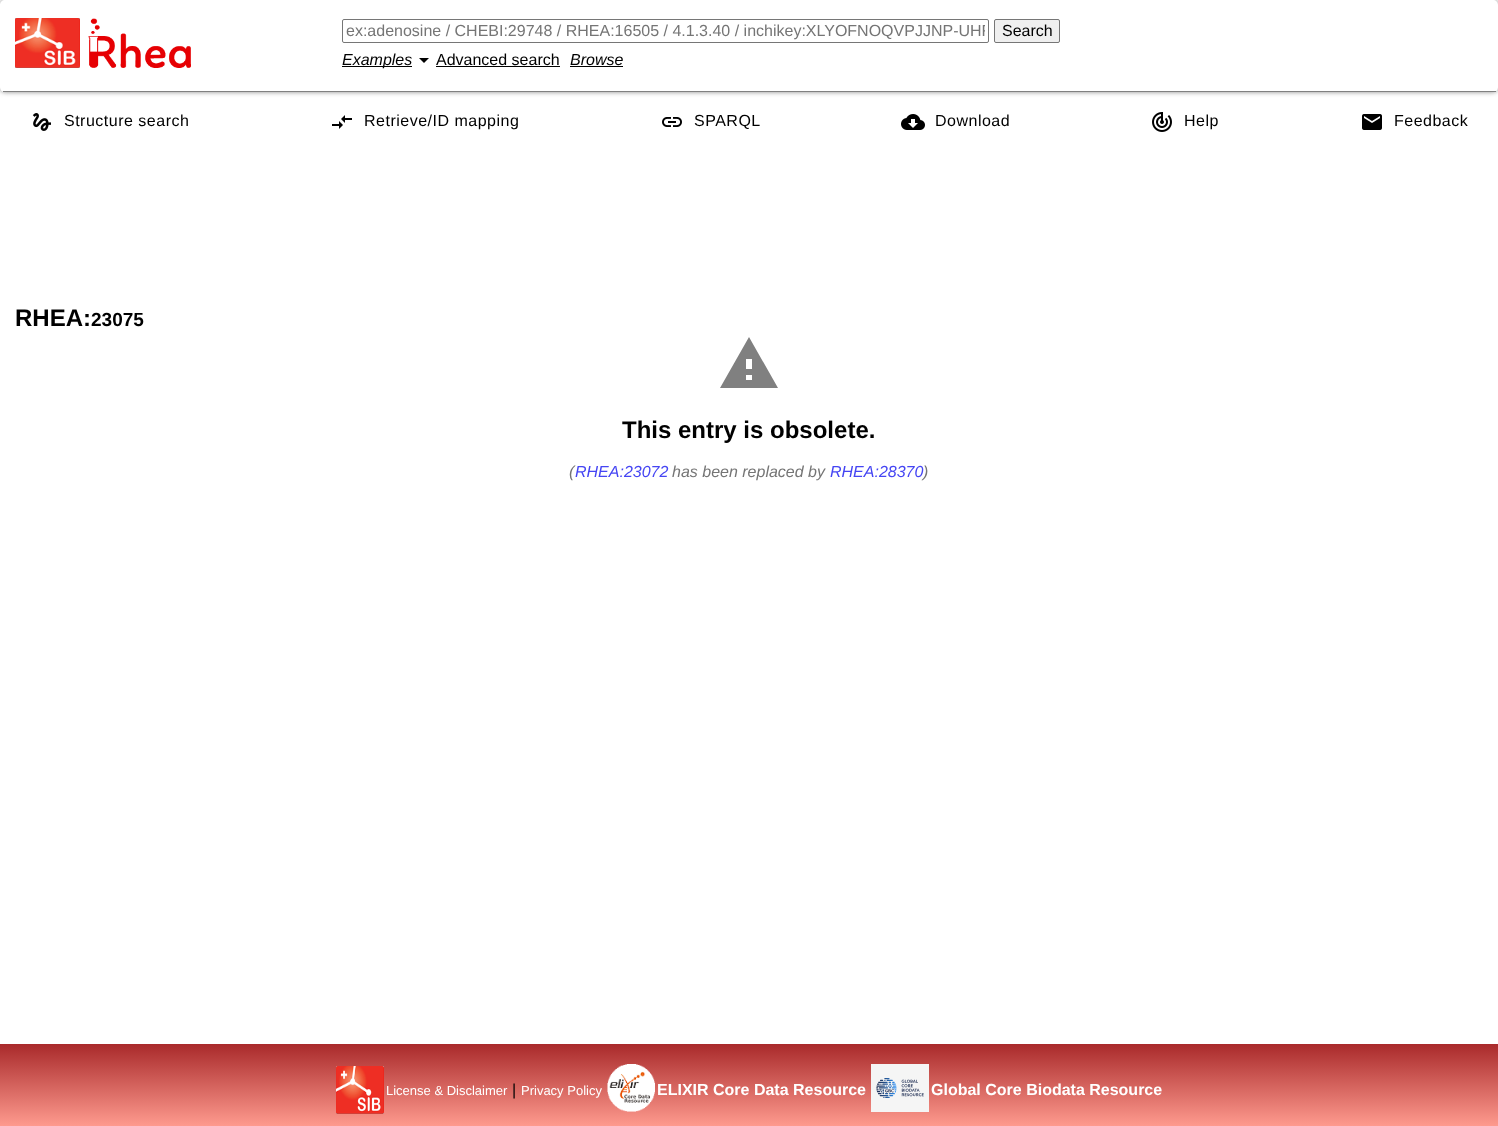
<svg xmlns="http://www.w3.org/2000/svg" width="1498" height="1126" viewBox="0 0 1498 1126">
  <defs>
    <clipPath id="clip1"><path d="M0 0H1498V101H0ZM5 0H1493C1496 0 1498 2 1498 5V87C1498 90 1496 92 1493 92H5C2 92 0 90 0 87V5C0 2 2 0 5 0Z" clip-rule="evenodd"/></clipPath>
    <clipPath id="clip2"><rect x="346" y="22" width="639" height="18"/></clipPath>
    <linearGradient id="g1" gradientUnits="userSpaceOnUse" x1="749" y1="1044" x2="749" y2="1126"><stop offset="0" stop-color="rgb(169,42,43)"/><stop offset="1" stop-color="rgb(254,154,142)"/></linearGradient>
  </defs>
  <rect width="100%" height="100%" fill="rgb(255,255,255)"/>
  <g clip-path="url(#clip1)">
    <rect x="0" y="0" width="1498" height="92" rx="5" fill="rgb(136,136,136)" filter="blur(2.5px)"/>
  </g>
  <rect x="3" y="91" width="1493" height="1" fill="rgb(128,128,128)"/>
  <image x="15" y="18" width="65" height="50" href="pic1.png"/>
  <image x="88" y="18" width="103" height="50" href="pic2.png"/>
  <rect x="342.5" y="19.5" width="646" height="23" rx="1.5" fill="none" stroke="rgb(118,118,118)"/>
  <g clip-path="url(#clip2)">
    <text x="346" y="36" font-family="Liberation Sans" font-size="16" fill="rgb(117,117,117)">ex:adenosine / CHEBI:29748 / RHEA:16505 / 4.1.3.40 / inchikey:XLYOFNOQVPJJNP-UHF</text>
  </g>
  <rect x="994.5" y="19.5" width="65" height="23" rx="1.5" fill="rgb(239,239,239)" stroke="rgb(118,118,118)"/>
  <text x="1002" y="36" font-family="Liberation Sans" font-size="16" fill="rgb(0,0,0)">Search</text>
  <rect x="342" y="66" width="70" height="1" fill="rgb(0,0,0)"/>
  <text x="342" y="65" font-family="Liberation Sans" font-size="16" font-style="italic" fill="rgb(0,0,0)">Examples</text>
  <path d="M419 58L424 63L429 58Z" fill="rgb(0,0,0)"/>
  <text x="436" y="65" font-family="Liberation Sans" font-size="16" fill="rgb(0,0,0)">Advanced search</text>
  <rect x="436" y="66" width="124" height="1" fill="rgb(0,0,0)"/>
  <text x="570" y="65" font-family="Liberation Sans" font-size="16" font-style="italic" fill="rgb(0,0,0)">Browse</text>
  <rect x="570" y="66" width="53" height="1" fill="rgb(0,0,0)"/>
  <image x="32" y="113" width="19" height="18" href="pic3.png"/>
  <text x="64" y="126" font-family="Liberation Sans" font-size="16" letter-spacing="0.5" fill="rgb(0,0,0)">Structure search</text>
  <image x="332" y="115" width="20" height="14" href="pic4.png"/>
  <text x="364" y="126" font-family="Liberation Sans" font-size="16" letter-spacing="0.5" fill="rgb(0,0,0)">Retrieve/ID mapping</text>
  <image x="662" y="117" width="20" height="10" href="pic5.png"/>
  <text x="694" y="126" font-family="Liberation Sans" font-size="16" letter-spacing="0.5" fill="rgb(0,0,0)">SPARQL</text>
  <image x="901" y="114" width="24" height="16" href="pic6.png"/>
  <text x="935" y="126" font-family="Liberation Sans" font-size="16" letter-spacing="0.5" fill="rgb(0,0,0)">Download</text>
  <image x="1152" y="112" width="20" height="20" href="pic7.png"/>
  <text x="1184" y="126" font-family="Liberation Sans" font-size="16" letter-spacing="0.5" fill="rgb(0,0,0)">Help</text>
  <image x="1362" y="114" width="20" height="16" href="pic8.png"/>
  <text x="1394" y="126" font-family="Liberation Sans" font-size="16" letter-spacing="0.5" fill="rgb(0,0,0)">Feedback</text>
  <text x="15" y="326" font-family="Liberation Sans" font-size="24" font-weight="bold" fill="rgb(0,0,0)">RHEA:</text>
  <text x="91" y="326" font-family="Liberation Sans" font-size="19" font-weight="bold" fill="rgb(0,0,0)">23075</text>
  <path d="M752 369V359H746V369ZM752 380V375H746V380ZM720 388L749 337L778 388Z" fill="rgb(128,128,128)"/>
  <text x="622" y="438" font-family="Liberation Sans" font-size="24" font-weight="bold" fill="rgb(0,0,0)">This entry is obsolete.</text>
  <text x="569" y="477" font-family="Liberation Sans" font-size="16" font-style="italic" fill="rgb(117,117,117)">(</text>
  <text x="575" y="477" font-family="Liberation Sans" font-size="16" font-style="italic" fill="rgb(69,69,243)">RHEA:23072</text>
  <text x="672" y="477" font-family="Liberation Sans" font-size="16" font-style="italic" fill="rgb(117,117,117)">has been replaced by</text>
  <text x="830" y="477" font-family="Liberation Sans" font-size="16" font-style="italic" fill="rgb(69,69,243)">RHEA:28370</text>
  <text x="923" y="477" font-family="Liberation Sans" font-size="16" font-style="italic" fill="rgb(117,117,117)">)</text>
  <rect x="0" y="1044" width="1498" height="82" fill="url(#g1)"/>
  <image x="336" y="1066" width="48" height="48" href="pic9.png"/>
  <text x="386" y="1095" font-family="Liberation Sans" font-size="13" fill="rgb(255,255,255)">License &amp; Disclaimer</text>
  <text x="512" y="1095" font-family="Liberation Sans" font-size="16" fill="rgb(0,0,0)">|</text>
  <text x="521" y="1095" font-family="Liberation Sans" font-size="13" fill="rgb(255,255,255)">Privacy Policy</text>
  <image x="607" y="1064" width="48" height="48" href="pic10.png"/>
  <text x="657" y="1095" font-family="Liberation Sans" font-size="16" font-weight="bold" fill="rgb(255,255,255)">ELIXIR Core Data Resource</text>
  <rect x="871" y="1064" width="58" height="48" fill="rgb(245,245,245)"/>
  <image x="876" y="1078" width="48" height="20" href="pic11.png"/>
  <text x="931" y="1095" font-family="Liberation Sans" font-size="16" font-weight="bold" fill="rgb(255,255,255)">Global Core Biodata Resource</text>
</svg>
